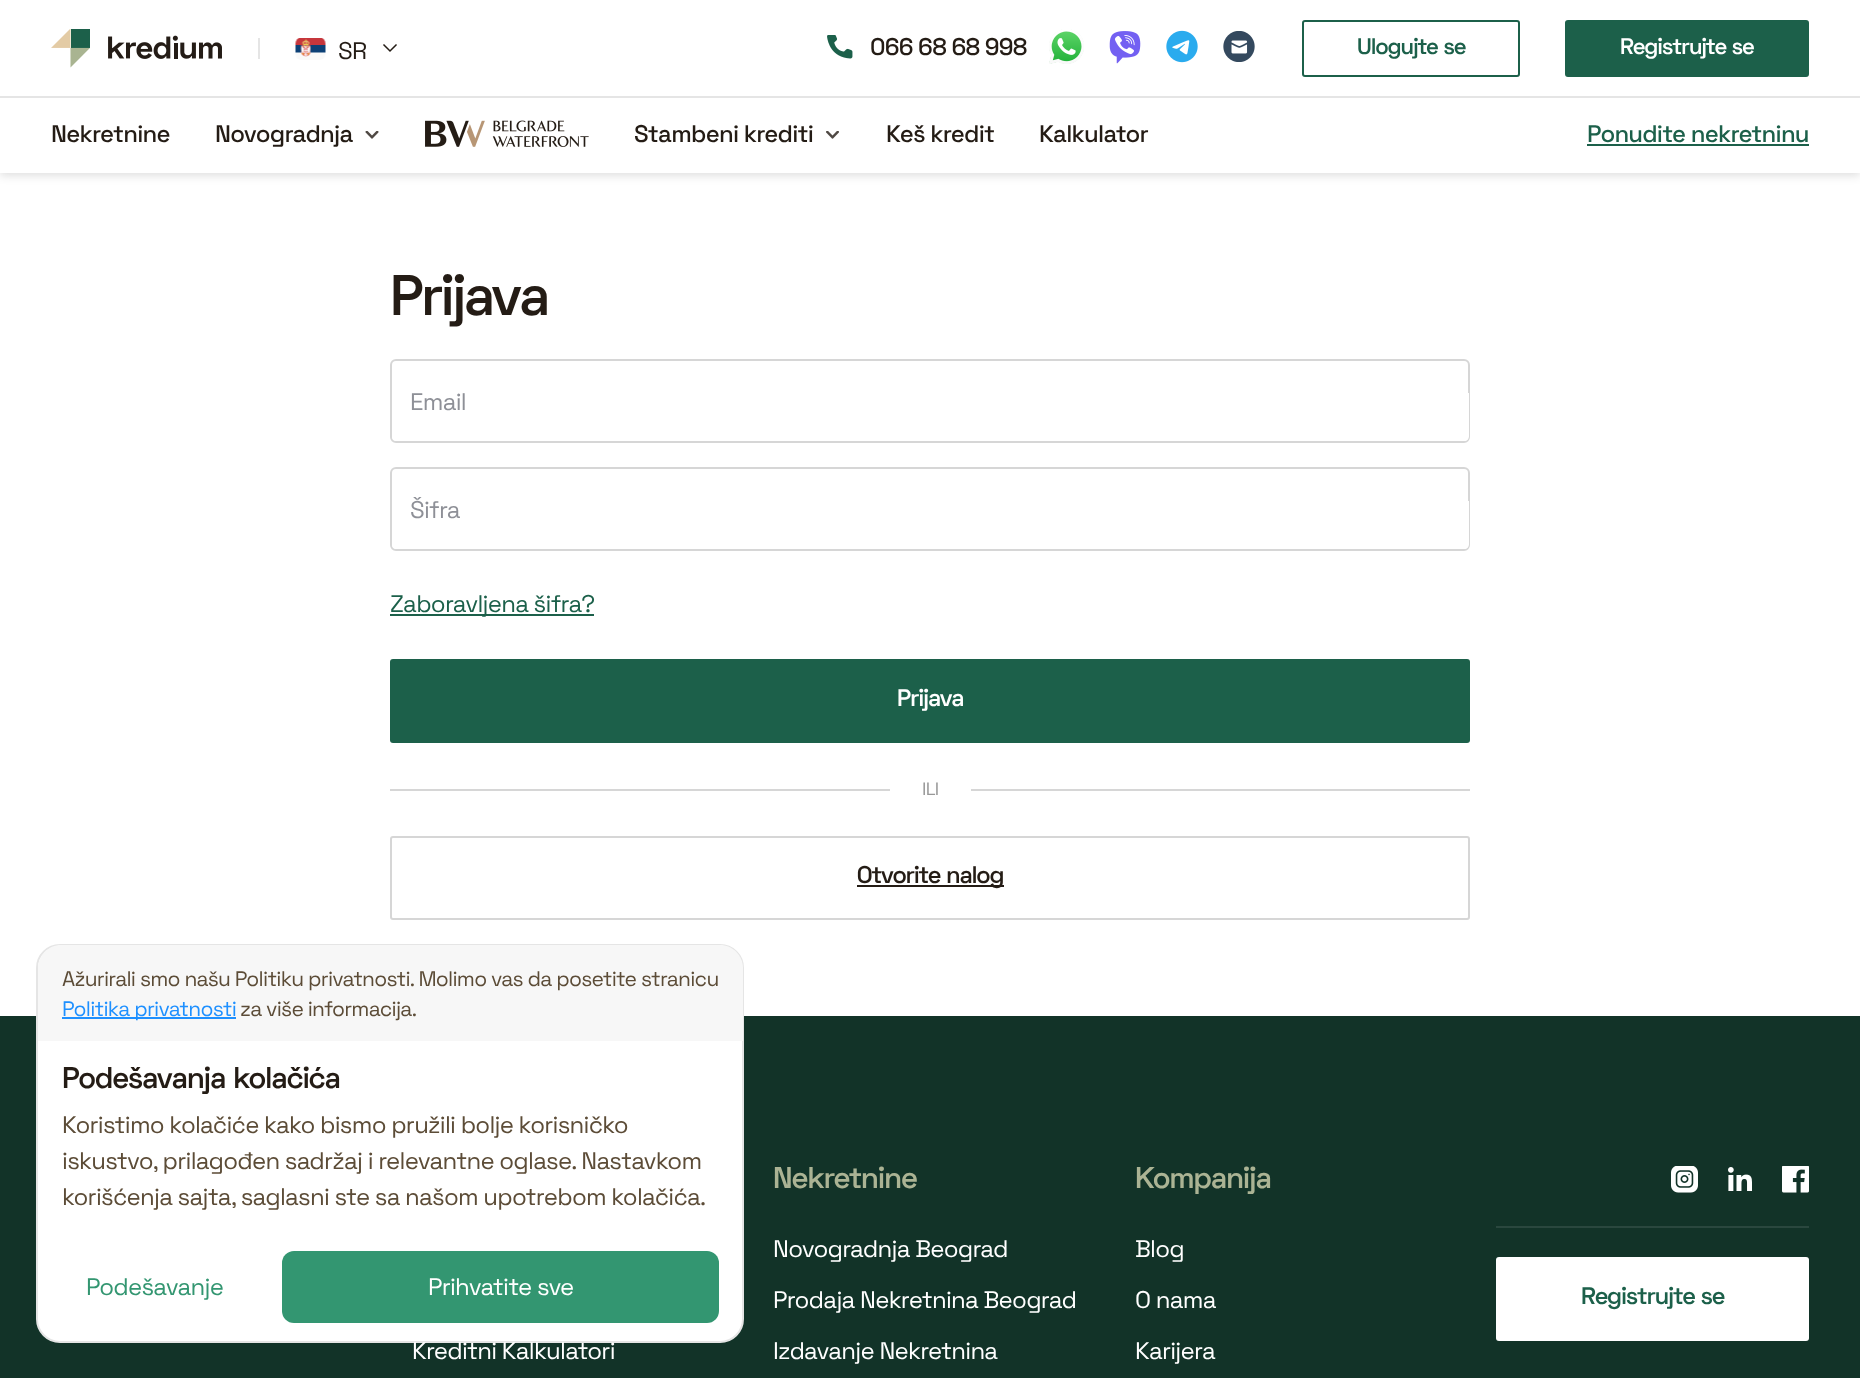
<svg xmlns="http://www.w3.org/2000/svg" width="1860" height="1378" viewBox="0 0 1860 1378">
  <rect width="100%" height="100%" fill="rgb(255,255,255)"/>
  <rect x="0" y="3" width="1860" height="173" fill="rgba(0,0,0,0.12)" filter="blur(4.5px)"/>
  <rect x="0" y="0" width="1860" height="173" fill="rgb(255,255,255)"/>
  <image x="51" y="29" width="171" height="39" href="pic1.png"/>
  <rect x="258" y="38" width="2" height="21" fill="rgb(229,229,229)"/>
  <image x="295" y="38" width="31" height="22" href="pic2.png"/>
  <text x="338" y="59" font-family="Space Grotesk" font-size="24" letter-spacing="-0.75" fill="rgb(36,28,21)">SR</text>
  <path d="M384 45L390 51L396 45" fill="none" stroke="rgb(36,28,21)" stroke-width="1.5" stroke-linecap="square"/>
  <image x="827" y="35" width="26" height="24" href="pic3.png"/>
  <text x="870" y="55" font-family="Space Grotesk" font-size="24" font-weight="500" letter-spacing="-0.75" fill="rgb(36,28,21)">066 68 68 998</text>
  <image x="1049" y="29" width="35" height="35" href="pic4.png"/>
  <image x="1109" y="31" width="32" height="33" href="pic5.png"/>
  <image x="1166" y="30" width="32" height="33" href="pic6.png"/>
  <image x="1223" y="31" width="32" height="31" href="pic7.png"/>
  <rect x="1303" y="21" width="216" height="55" rx="2" fill="none" stroke="rgb(28,96,74)" stroke-width="2"/>
  <text x="1357" y="54" font-family="Space Grotesk" font-size="22.5" font-weight="600" letter-spacing="-0.75" fill="rgb(28,96,74)">Ulogujte se</text>
  <rect x="1566.5" y="21.5" width="241" height="54" rx="1.5" fill="rgb(28,96,74)" stroke="rgb(28,96,74)" stroke-width="3"/>
  <text x="1620" y="54" font-family="Space Grotesk" font-size="22.5" font-weight="600" letter-spacing="-0.75" fill="rgb(255,255,255)">Registrujte se</text>
  <rect x="0" y="96" width="1860" height="2" fill="rgb(229,229,229)"/>
  <g font-family="Space Grotesk" font-size="24" font-weight="500" letter-spacing="-0.75" fill="rgb(36,28,21)">
    <text x="51" y="142">Nekretnine</text>
    <text x="215" y="142">Novogradnja</text>
  </g>
  <image x="365" y="131" width="14" height="8" href="pic8.png"/>
  <image x="425" y="120" width="164" height="27" href="pic9.png"/>
  <text x="634" y="142" font-family="Space Grotesk" font-size="24" font-weight="500" letter-spacing="-0.75" fill="rgb(36,28,21)">Stambeni krediti</text>
  <image x="826" y="131" width="13" height="8" href="pic10.png"/>
  <g font-family="Space Grotesk" font-size="24" font-weight="500" letter-spacing="-0.75" fill="rgb(36,28,21)">
    <text x="886" y="142">Keš kredit</text>
    <text x="1039" y="142">Kalkulator</text>
  </g>
  <text x="1587" y="142" font-family="Space Grotesk" font-size="24" font-weight="500" letter-spacing="-0.75" fill="rgb(28,96,74)">Ponudite nekretninu</text>
  <rect x="1587" y="144" width="222" height="2" fill="rgb(28,96,74)"/>
  <rect x="0" y="1016" width="1860" height="362" fill="rgb(18,51,40)"/>
  <rect x="37" y="945" width="706" height="397" rx="23" fill="rgb(255,255,255)" stroke="rgb(229,229,229)" stroke-width="2"/>
  <path d="M61 945H720C732.5 945 743 955.5 743 968V1041H38V968C38 955.5 48.5 945 61 945Z" fill="rgb(247,247,247)"/>
  <text x="62" y="986" font-family="Space Grotesk" font-size="21" letter-spacing="-0.75" fill="rgb(92,76,55)">Ažurirali smo našu Politiku privatnosti. Molimo vas da posetite stranicu</text>
  <rect x="62" y="1017" width="174" height="2" fill="rgb(30,144,255)"/>
  <text x="62" y="1016" font-family="Space Grotesk" font-size="21" letter-spacing="-0.75" fill="rgb(30,144,255)">Politika privatnosti</text>
  <text x="240" y="1016" font-family="Space Grotesk" font-size="21" letter-spacing="-0.75" fill="rgb(92,76,55)">za više informacija.</text>
  <text x="62" y="1088" font-family="Space Grotesk" font-size="30" font-weight="600" letter-spacing="-0.75" fill="rgb(36,28,21)">Podešavanja kolačića</text>
  <g font-family="Space Grotesk" font-size="24" letter-spacing="-0.75" fill="rgb(92,76,55)">
    <text>
      <tspan x="62" y="1133">Koristimo kolačiće kako bismo pružili bolje korisničko</tspan>
      <tspan x="62" y="1169">iskustvo, prilagođen sadržaj i relevantne oglase. Nastavkom</tspan>
      <tspan x="62" y="1205">korišćenja sajta, saglasni ste sa našom upotrebom kolačića.</tspan>
    </text>
  </g>
  <text x="86" y="1295" font-family="Space Grotesk" font-size="24" letter-spacing="-0.75" fill="rgb(51,150,113)">Podešavanje</text>
  <rect x="282" y="1251" width="437" height="72" rx="12" fill="rgb(51,150,113)"/>
  <text x="428" y="1295" font-family="Space Grotesk" font-size="24" letter-spacing="-0.75" fill="rgb(255,255,255)">Prihvatite sve</text>
  <text x="390" y="315" font-family="Space Grotesk" font-size="57" font-weight="600" letter-spacing="-1.75" fill="rgb(36,28,21)">Prijava</text>
  <rect x="391" y="360" width="1078" height="82" rx="5" fill="none" stroke="rgb(214,214,214)" stroke-width="2"/>
  <path d="M392 393H1469V436C1469 439 1467 441 1464 441H397C394 441 392 439 392 436Z" fill="rgb(255,255,255)"/>
  <text x="410" y="410" font-family="Space Grotesk" font-size="24" letter-spacing="-0.75" fill="rgb(142,144,151)">Email</text>
  <rect x="391" y="468" width="1078" height="82" rx="5" fill="none" stroke="rgb(214,214,214)" stroke-width="2"/>
  <path d="M392 501H1469V544C1469 547 1467 549 1464 549H397C394 549 392 547 392 544Z" fill="rgb(255,255,255)"/>
  <text x="410" y="518" font-family="Space Grotesk" font-size="24" letter-spacing="-0.75" fill="rgb(142,144,151)">Šifra</text>
  <rect x="390" y="614" width="204" height="2" fill="rgb(28,96,74)"/>
  <text x="390" y="612" font-family="Space Grotesk" font-size="24" letter-spacing="-0.75" fill="rgb(28,96,74)">Zaboravljena šifra?</text>
  <rect x="390" y="659" width="1080" height="84" rx="3" fill="rgb(28,96,74)"/>
  <text x="897" y="706" font-family="Space Grotesk" font-size="24" font-weight="600" letter-spacing="-0.75" fill="rgb(255,255,255)">Prijava</text>
  <rect x="390" y="789" width="500" height="2" fill="rgb(214,214,214)"/>
  <text x="922" y="795" font-family="Space Grotesk" font-size="18" letter-spacing="-0.75" fill="rgb(152,152,152)">ILI</text>
  <rect x="971" y="789" width="499" height="2" fill="rgb(214,214,214)"/>
  <rect x="391" y="837" width="1078" height="82" rx="2" fill="none" stroke="rgb(214,214,214)" stroke-width="2"/>
  <rect x="857" y="885" width="147" height="2" fill="rgb(36,28,21)"/>
  <text x="857" y="883" font-family="Space Grotesk" font-size="24" font-weight="600" letter-spacing="-0.75" fill="rgb(36,28,21)">Otvorite nalog</text>
  <text x="773" y="1188" font-family="Space Grotesk" font-size="30" font-weight="600" letter-spacing="-0.75" fill="rgb(171,179,148)">Nekretnine</text>
  <g font-family="Space Grotesk" font-size="24" letter-spacing="-0.75" fill="rgb(255,255,255)">
    <text x="773" y="1257">Novogradnja Beograd</text>
    <text x="773" y="1308">Prodaja Nekretnina Beograd</text>
    <text x="773" y="1359">Izdavanje Nekretnina</text>
  </g>
  <text x="1135" y="1188" font-family="Space Grotesk" font-size="30" font-weight="600" letter-spacing="-0.75" fill="rgb(171,179,148)">Kompanija</text>
  <g font-family="Space Grotesk" font-size="24" letter-spacing="-0.75" fill="rgb(255,255,255)">
    <text x="1135" y="1257">Blog</text>
    <text x="1135" y="1308">O nama</text>
    <text x="1135" y="1359">Karijera</text>
  </g>
  <rect x="1496" y="1226" width="313" height="2" fill="rgb(42,71,62)"/>
  <image x="1671" y="1166" width="27" height="27" href="pic11.png"/>
  <image x="1728" y="1167" width="24" height="24" href="pic12.png"/>
  <image x="1782" y="1166" width="27" height="27" href="pic13.png"/>
  <rect x="1496" y="1257" width="313" height="84" rx="3" fill="rgb(255,255,255)"/>
  <text x="1581" y="1304" font-family="Space Grotesk" font-size="24" font-weight="600" letter-spacing="-0.75" fill="rgb(28,96,74)">Registrujte se</text>
  <text x="412" y="1359" font-family="Space Grotesk" font-size="24" letter-spacing="-0.75" fill="rgb(255,255,255)">Kreditni Kalkulatori</text>
</svg>
